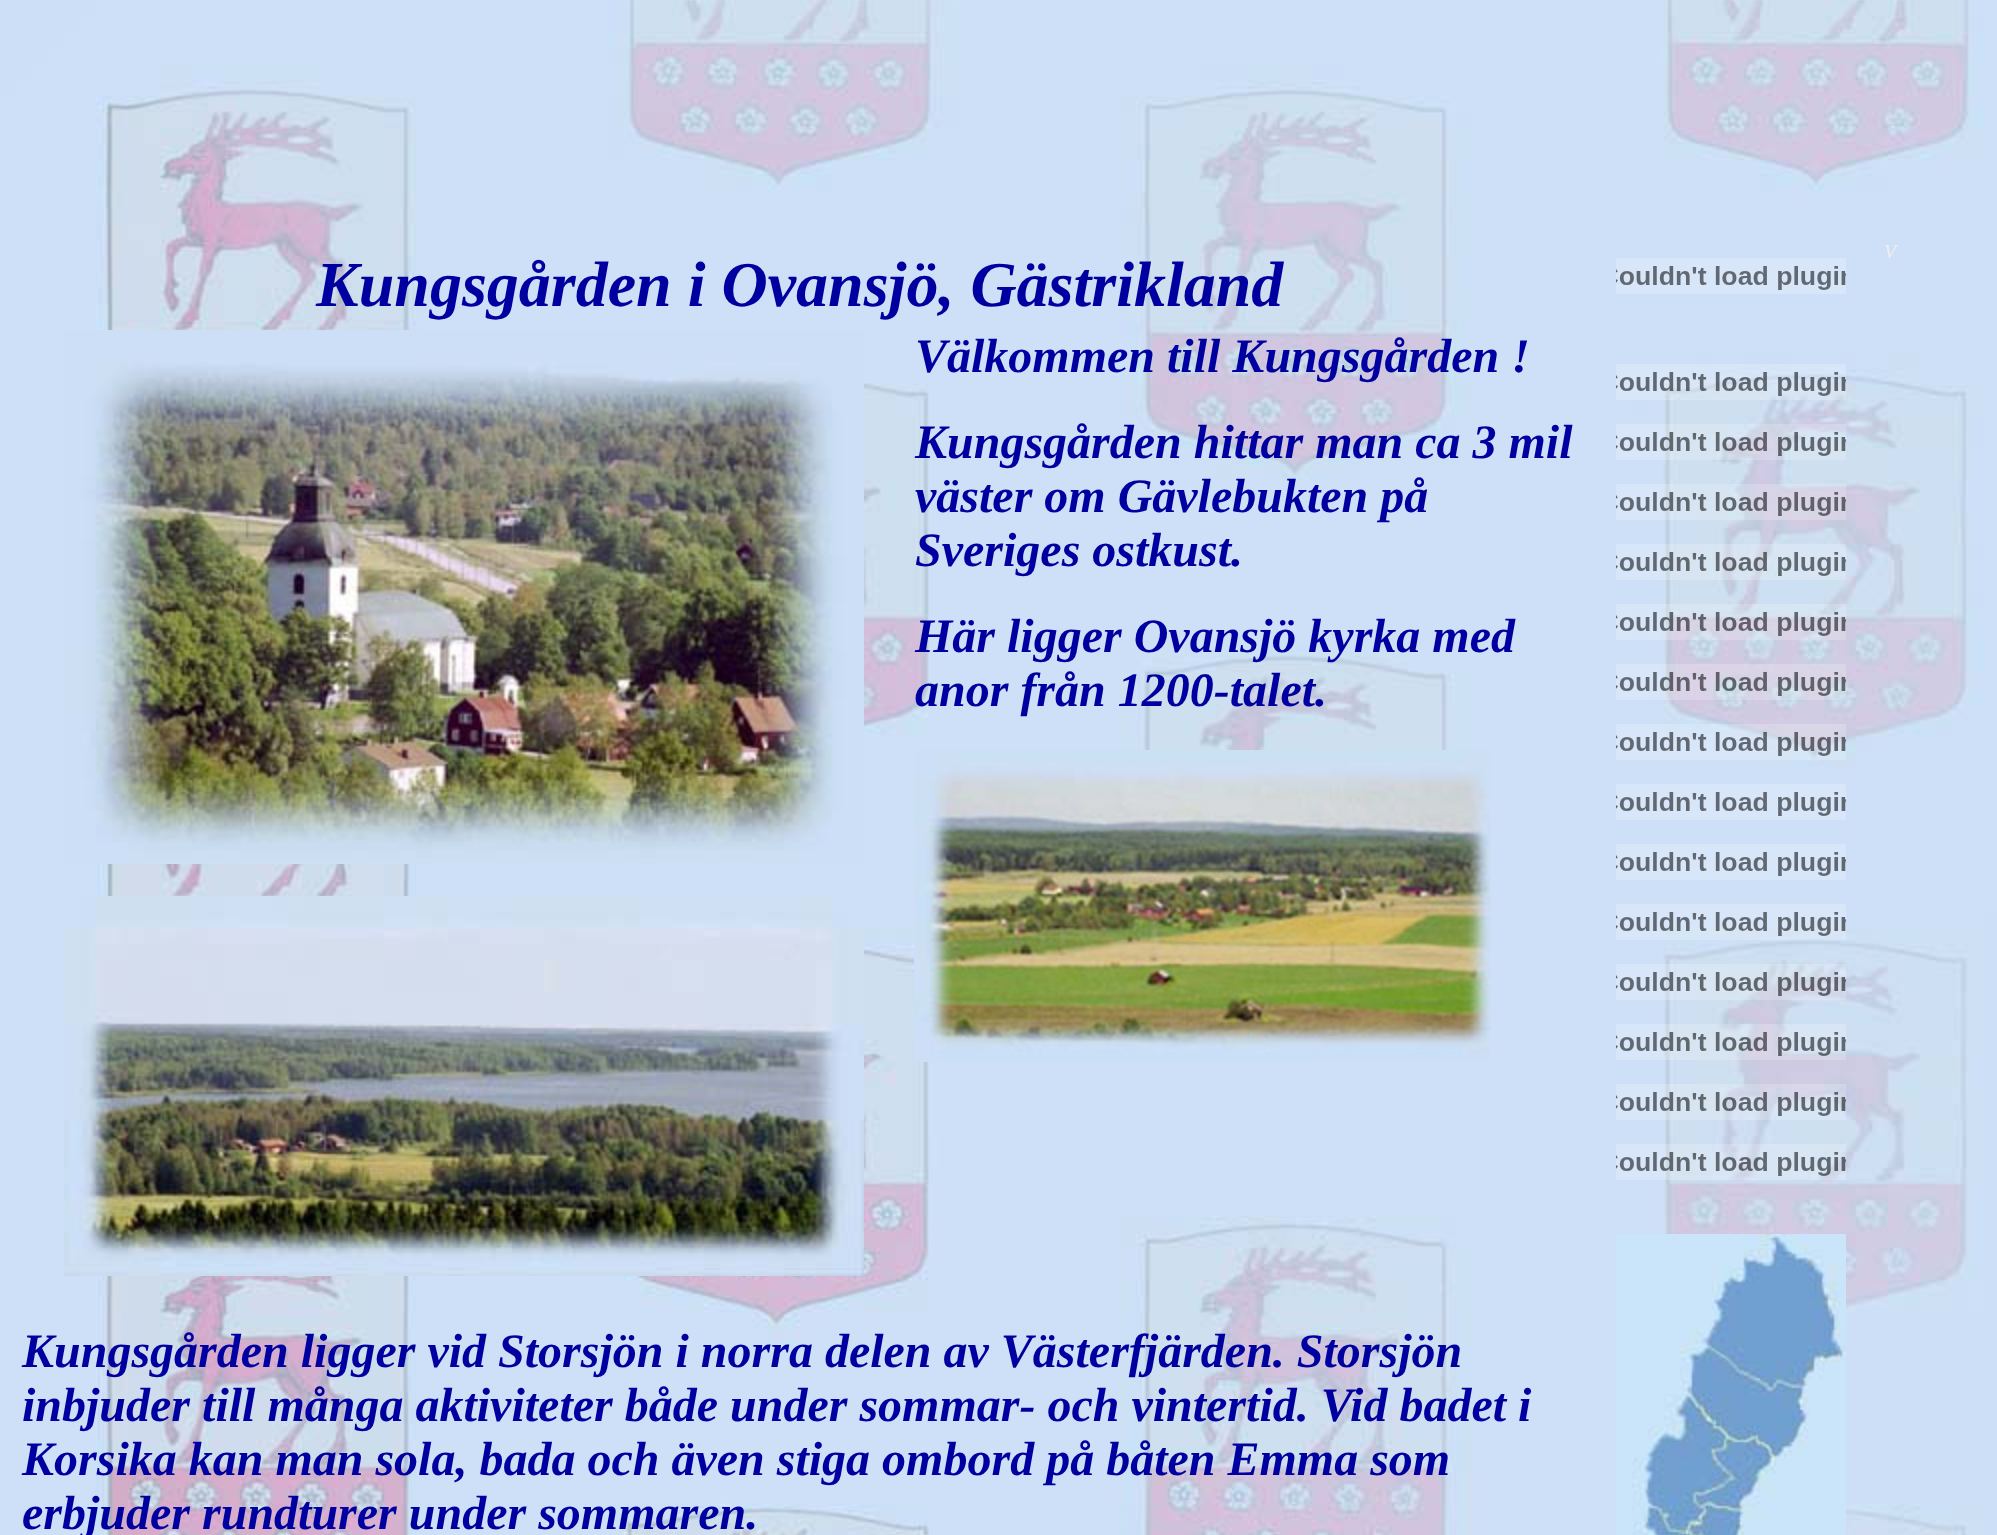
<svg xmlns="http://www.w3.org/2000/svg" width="1997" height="1535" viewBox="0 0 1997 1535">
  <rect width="100%" height="100%" fill="rgb(255,255,255)"/>
  <image x="0" y="0" width="1997" height="1535" href="pic1.png"/>
  <text x="1884" y="258" font-family="Liberation Serif" font-size="20" font-style="italic" fill="rgb(238,238,238)">V</text>
  <text x="316" y="306" font-family="Liberation Serif" font-size="64" font-weight="bold" font-style="italic" fill="rgb(0,0,160)">Kungsgården i Ovansjö, Gästrikland</text>
  <image x="1616" y="258" width="230" height="36" href="pic2.png"/>
  <image x="1616" y="364" width="230" height="36" href="pic3.png"/>
  <image x="1616" y="424" width="230" height="36" href="pic4.png"/>
  <image x="1616" y="484" width="230" height="36" href="pic5.png"/>
  <image x="1616" y="544" width="230" height="36" href="pic6.png"/>
  <image x="1616" y="604" width="230" height="36" href="pic7.png"/>
  <image x="1616" y="664" width="230" height="36" href="pic8.png"/>
  <image x="1616" y="724" width="230" height="36" href="pic9.png"/>
  <image x="1616" y="784" width="230" height="36" href="pic2.png"/>
  <image x="1616" y="844" width="230" height="36" href="pic2.png"/>
  <image x="1616" y="904" width="230" height="36" href="pic10.png"/>
  <image x="1616" y="964" width="230" height="36" href="pic11.png"/>
  <image x="1616" y="1024" width="230" height="36" href="pic12.png"/>
  <image x="1616" y="1084" width="230" height="36" href="pic13.png"/>
  <image x="1616" y="1144" width="230" height="36" href="pic14.png"/>
  <image x="1616" y="1234" width="230" height="301" href="pic15.png"/>
  <image x="64" y="330" width="800" height="534" href="pic16.png"/>
  <image x="64" y="896" width="800" height="380" href="pic17.png"/>
  <g font-family="Liberation Serif" font-size="48" font-weight="bold" font-style="italic" fill="rgb(0,0,160)">
    <text>
      <tspan x="915" y="372">Välkommen till Kungsgården !</tspan>
      <tspan x="915" y="458">Kungsgården hittar man ca 3 mil</tspan>
      <tspan x="915" y="512">väster om Gävlebukten på</tspan>
      <tspan x="915" y="566">Sveriges ostkust.</tspan>
      <tspan x="915" y="652">Här ligger Ovansjö kyrka med</tspan>
      <tspan x="915" y="706">anor från 1200-talet.</tspan>
    </text>
  </g>
  <image x="914" y="750" width="577" height="312" href="pic18.png"/>
  <g font-family="Liberation Serif" font-size="48" font-weight="bold" font-style="italic" fill="rgb(0,0,160)">
    <text>
      <tspan x="22" y="1367">Kungsgården ligger vid Storsjön i norra delen av Västerfjärden. Storsjön</tspan>
      <tspan x="22" y="1421">inbjuder till många aktiviteter både under sommar- och vintertid. Vid badet i</tspan>
      <tspan x="22" y="1475">Korsika kan man sola, bada och även stiga ombord på båten Emma som</tspan>
      <tspan x="22" y="1529">erbjuder rundturer under sommaren.</tspan>
    </text>
  </g>
</svg>
